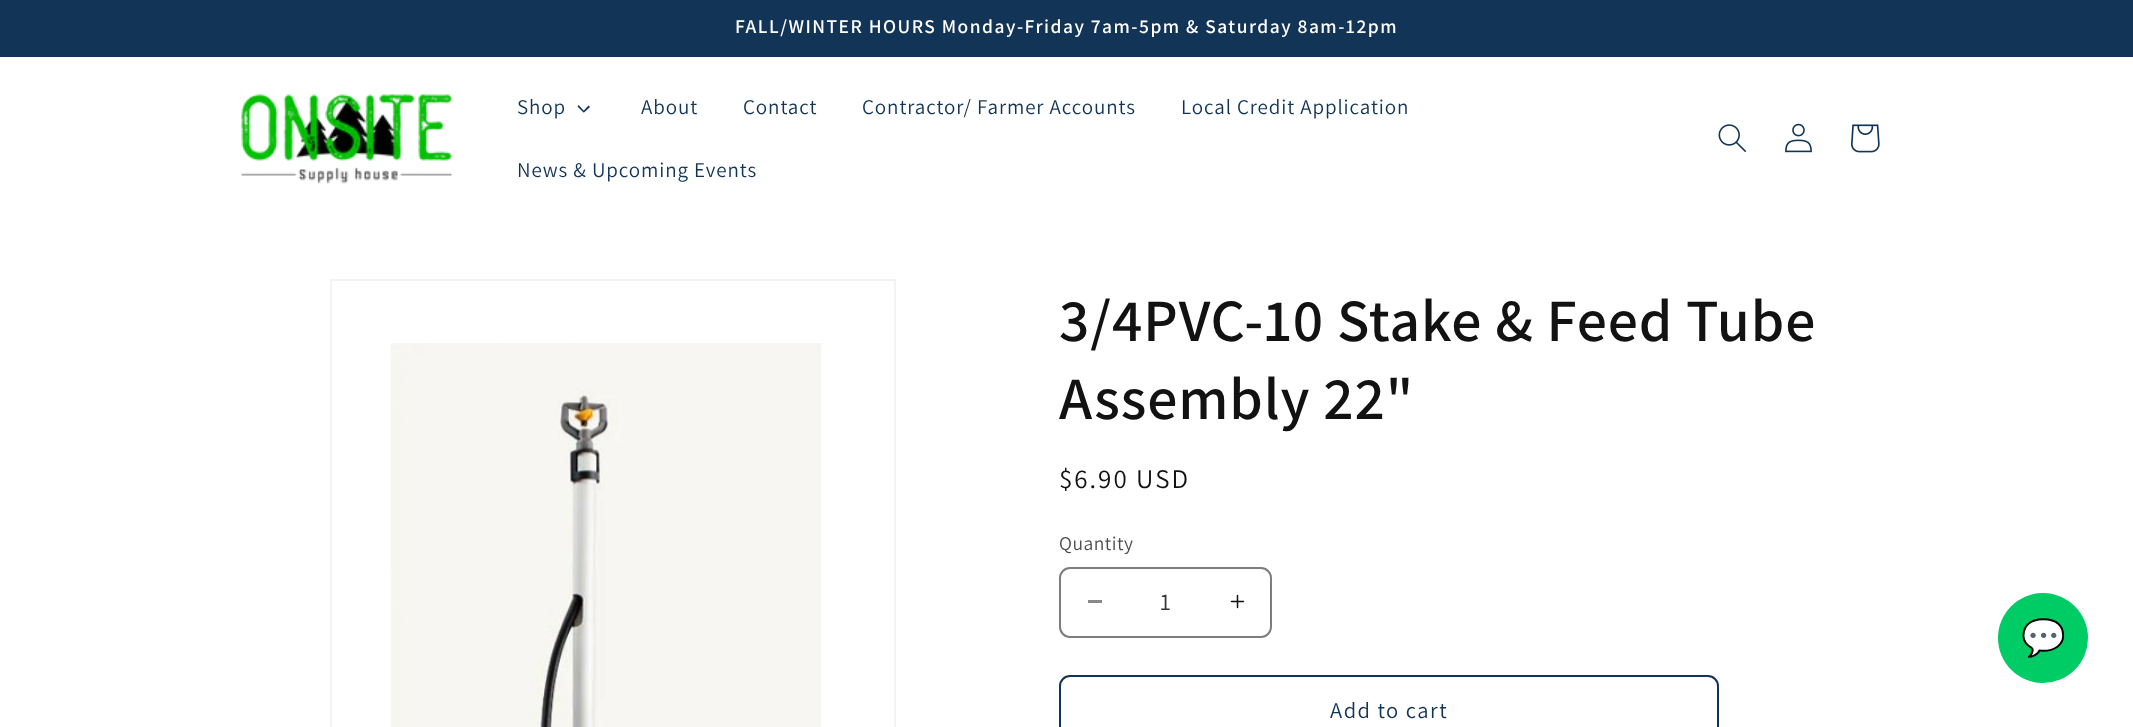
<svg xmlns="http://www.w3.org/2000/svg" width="2133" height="727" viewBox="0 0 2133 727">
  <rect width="100%" height="100%" fill="rgb(255,255,255)"/>
  <rect x="0" y="0" width="2133" height="57" fill="rgb(18,52,86)"/>
  <text x="735" y="33" font-family="Assistant" font-size="19.5" font-weight="600" letter-spacing="1.5" fill="rgb(255,255,255)">FALL/WINTER HOURS Monday-Friday 7am-5pm &amp; Saturday 8am-12pm</text>
  <image x="241" y="94" width="211" height="90" href="pic1.png"/>
  <text x="517" y="114" font-family="Assistant" font-size="21" letter-spacing="0.9" fill="rgb(18,52,86)">Shop</text>
  <path d="M588.5 105.5L590 107L584 112.5L583 111.5Z" fill="rgb(18,52,86)"/>
  <path d="M578.5 105L584.5 111.5L583.5 112.5L577.5 106.5Z" fill="rgb(18,52,86)"/>
  <g font-family="Assistant" font-size="21" letter-spacing="0.9" fill="rgb(18,52,86)">
    <text x="641" y="114">About</text>
    <text x="743" y="114">Contact</text>
    <text x="862" y="114">Contractor/ Farmer Accounts</text>
    <text x="1181" y="114">Local Credit Application</text>
    <text x="517" y="177">News &amp; Upcoming Events</text>
  </g>
  <image x="1718" y="124" width="28" height="28" href="pic2.png"/>
  <image x="1785" y="123" width="27" height="30" href="pic3.png"/>
  <image x="1851" y="124" width="29" height="29" href="pic4.png"/>
  <rect x="331" y="280" width="564" height="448" fill="none" stroke="rgb(243,243,243)" stroke-width="2"/>
  <image x="390" y="343" width="433" height="384" href="pic5.png"/>
  <g font-family="Assistant" font-size="60" font-weight="600" letter-spacing="0.9" fill="rgb(18,18,18)">
    <text>
      <tspan x="1059" y="341">3/4PVC-10 Stake &amp; Feed Tube</tspan>
      <tspan x="1059" y="419">Assembly 22"</tspan>
    </text>
  </g>
  <text x="1059" y="488" font-family="Assistant" font-size="27" letter-spacing="2" fill="rgb(18,18,18)">$6.90 USD</text>
  <text x="1059" y="550" font-family="Assistant" font-size="19.5" letter-spacing="0.5" fill="rgb(77,77,77)">Quantity</text>
  <rect x="1088" y="600" width="14" height="3" fill="rgb(137,137,137)"/>
  <image x="1230" y="594" width="15" height="15" href="pic6.png"/>
  <rect x="1060" y="568" width="211" height="69" rx="10" fill="none" stroke="rgb(125,125,125)" stroke-width="2"/>
  <text x="1160" y="610" font-family="Assistant" font-size="24" fill="rgb(54,54,54)">1</text>
  <rect x="1060" y="676" width="658" height="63" rx="10" fill="none" stroke="rgb(18,52,86)" stroke-width="2"/>
  <text x="1330" y="718" font-family="Assistant" font-size="22.5" letter-spacing="1.5" fill="rgb(18,52,86)">Add to cart</text>
  <circle cx="2043" cy="638" r="45" fill="rgb(0,204,102)"/>
  <text x="2021" y="650" font-family="Noto Color Emoji" font-size="36" fill="rgb(255,255,255)">💬</text>
</svg>
